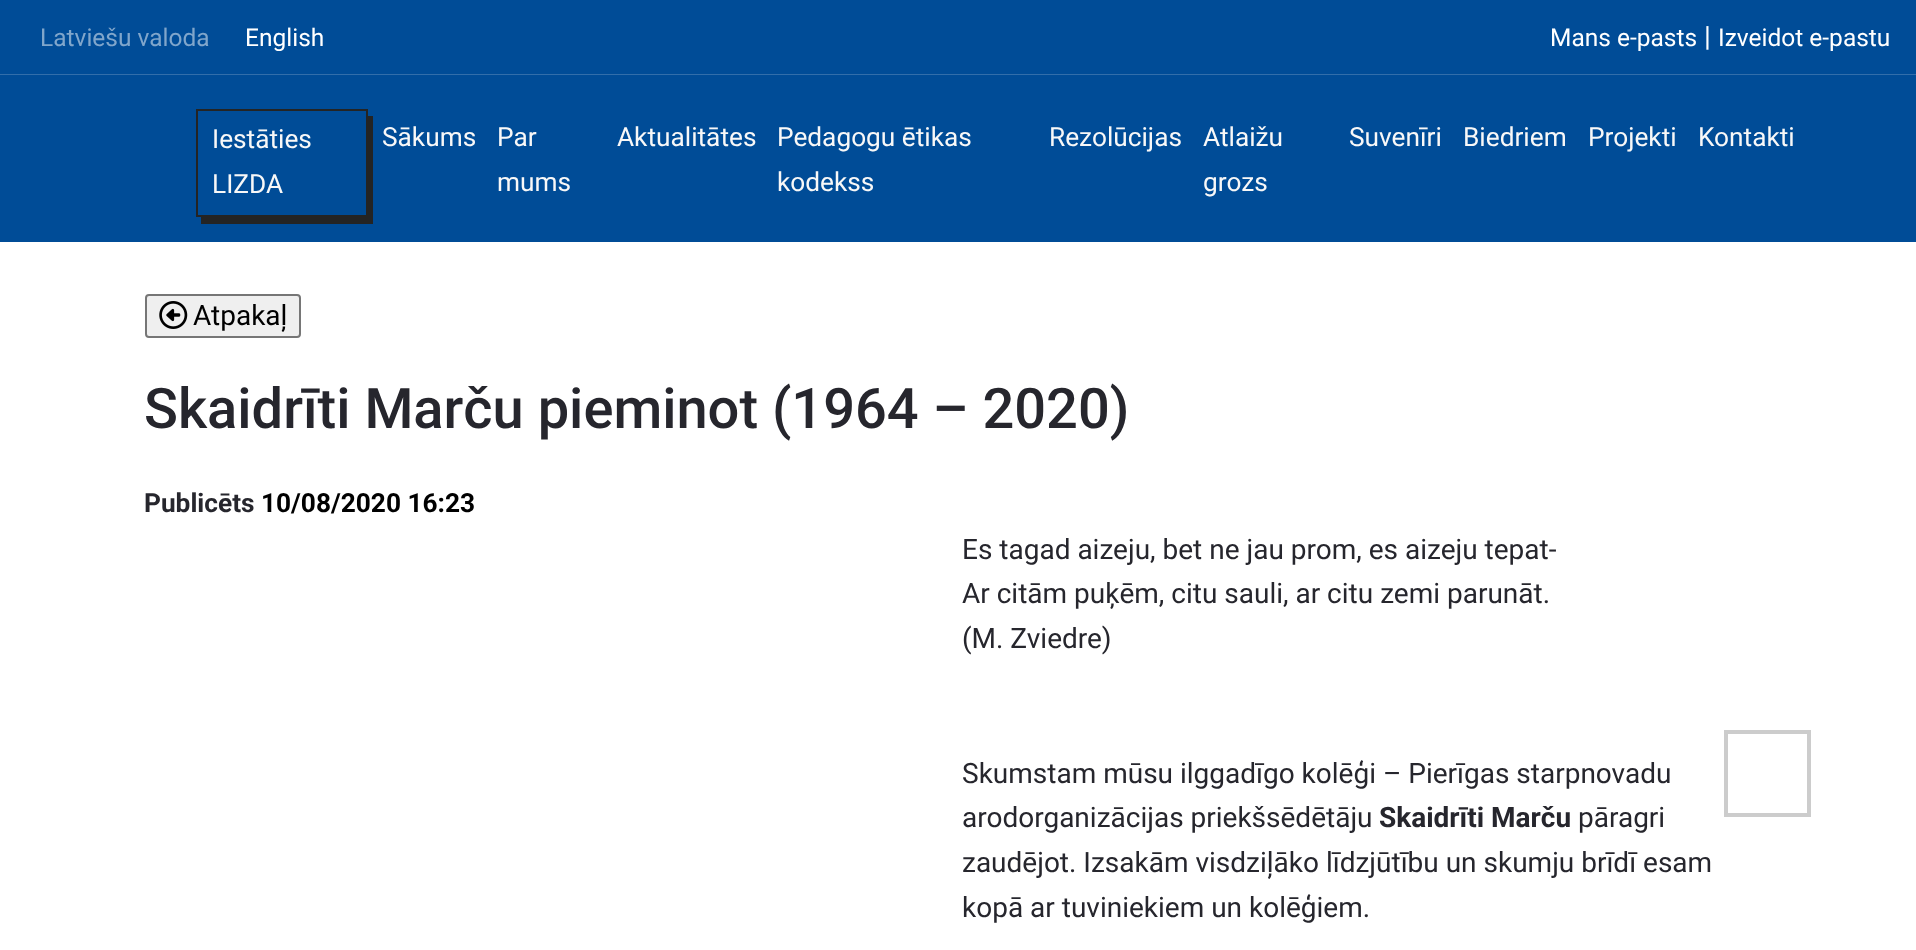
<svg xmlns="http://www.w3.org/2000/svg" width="1916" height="950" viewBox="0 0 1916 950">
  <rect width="100%" height="100%" fill="rgb(255,255,255)"/>
  <rect x="0" y="0" width="1916" height="74" fill="rgb(0,76,151)"/>
  <rect x="0" y="74" width="1916" height="1" fill="rgb(50,110,170)"/>
  <text x="40" y="46" font-family="Roboto" font-size="24.5" fill="rgb(128,166,203)">Latviešu valoda</text>
  <g font-family="Roboto" font-size="24.5" fill="rgb(255,255,255)">
    <text x="245" y="46">English</text>
    <text x="1550" y="46">Mans e-pasts</text>
  </g>
  <text x="1704" y="46" font-family="Roboto" font-size="28" fill="rgb(255,255,255)">|</text>
  <text x="1718" y="46" font-family="Roboto" font-size="24.5" fill="rgb(255,255,255)">Izveidot e-pastu</text>
  <rect x="0" y="75" width="1916" height="167" fill="rgb(0,76,151)"/>
  <path d="M201 217V224H373V116H368V217Z" fill="rgb(36,36,36)"/>
  <rect x="197" y="110" width="170" height="106" fill="none" stroke="rgb(36,36,36)" stroke-width="2"/>
  <g font-family="Roboto" font-size="26.25" fill="rgb(248,248,248)">
    <text>
      <tspan x="212" y="148">Iestāties</tspan>
      <tspan x="212" y="193">LIZDA</tspan>
    </text>
    <text x="382" y="146">Sākums</text>
    <text>
      <tspan x="497" y="146">Par</tspan>
      <tspan x="497" y="191">mums</tspan>
    </text>
    <text x="617" y="146">Aktualitātes</text>
    <text>
      <tspan x="777" y="146">Pedagogu ētikas</tspan>
      <tspan x="777" y="191">kodekss</tspan>
    </text>
    <text x="1049" y="146">Rezolūcijas</text>
    <text>
      <tspan x="1203" y="146">Atlaižu</tspan>
      <tspan x="1203" y="191">grozs</tspan>
    </text>
    <text x="1349" y="146">Suvenīri</text>
    <text x="1463" y="146">Biedriem</text>
    <text x="1588" y="146">Projekti</text>
    <text x="1698" y="146">Kontakti</text>
  </g>
  <rect x="146" y="295" width="154" height="42" rx="3" fill="rgb(239,239,239)" stroke="rgb(118,118,118)" stroke-width="2"/>
  <image x="159" y="301" width="29" height="28" href="pic1.png"/>
  <text x="193" y="325" font-family="Roboto" font-size="28" fill="rgb(0,0,0)">Atpakaļ</text>
  <text x="144" y="428" font-family="Roboto" font-size="56" font-weight="500" fill="rgb(38,38,45)">Skaidrīti Marču pieminot (1964 – 2020)</text>
  <text x="144" y="512" font-family="Roboto" font-size="26.25" font-weight="bold" fill="rgb(38,38,45)">Publicēts</text>
  <text x="261" y="512" font-family="Roboto" font-size="26.25" font-weight="bold" fill="rgb(0,0,0)">10/08/2020 16:23</text>
  <g font-family="Roboto" font-size="28" fill="rgb(38,38,45)">
    <text>
      <tspan x="962" y="559">Es tagad aizeju, bet ne jau prom, es aizeju tepat-</tspan>
      <tspan x="962" y="603">Ar citām puķēm, citu sauli, ar citu zemi parunāt.</tspan>
      <tspan x="962" y="648">(M. Zviedre)</tspan>
    </text>
    <text>
      <tspan x="962" y="783">Skumstam mūsu ilggadīgo kolēģi – Pierīgas starpnovadu</tspan>
      <tspan x="962" y="827">arodorganizācijas priekšsēdētāju</tspan>
    </text>
  </g>
  <text x="1379" y="827" font-family="Roboto" font-size="28" font-weight="bold" fill="rgb(38,38,45)">Skaidrīti Marču</text>
  <g font-family="Roboto" font-size="28" fill="rgb(38,38,45)">
    <text x="1578" y="827">pāragri</text>
    <text>
      <tspan x="962" y="872">zaudējot. Izsakām visdziļāko līdzjūtību un skumju brīdī esam</tspan>
      <tspan x="962" y="917">kopā ar tuviniekiem un kolēģiem.</tspan>
    </text>
  </g>
  <rect x="1726" y="732" width="83" height="83" fill="none" stroke="rgb(204,204,204)" stroke-width="4"/>
</svg>
